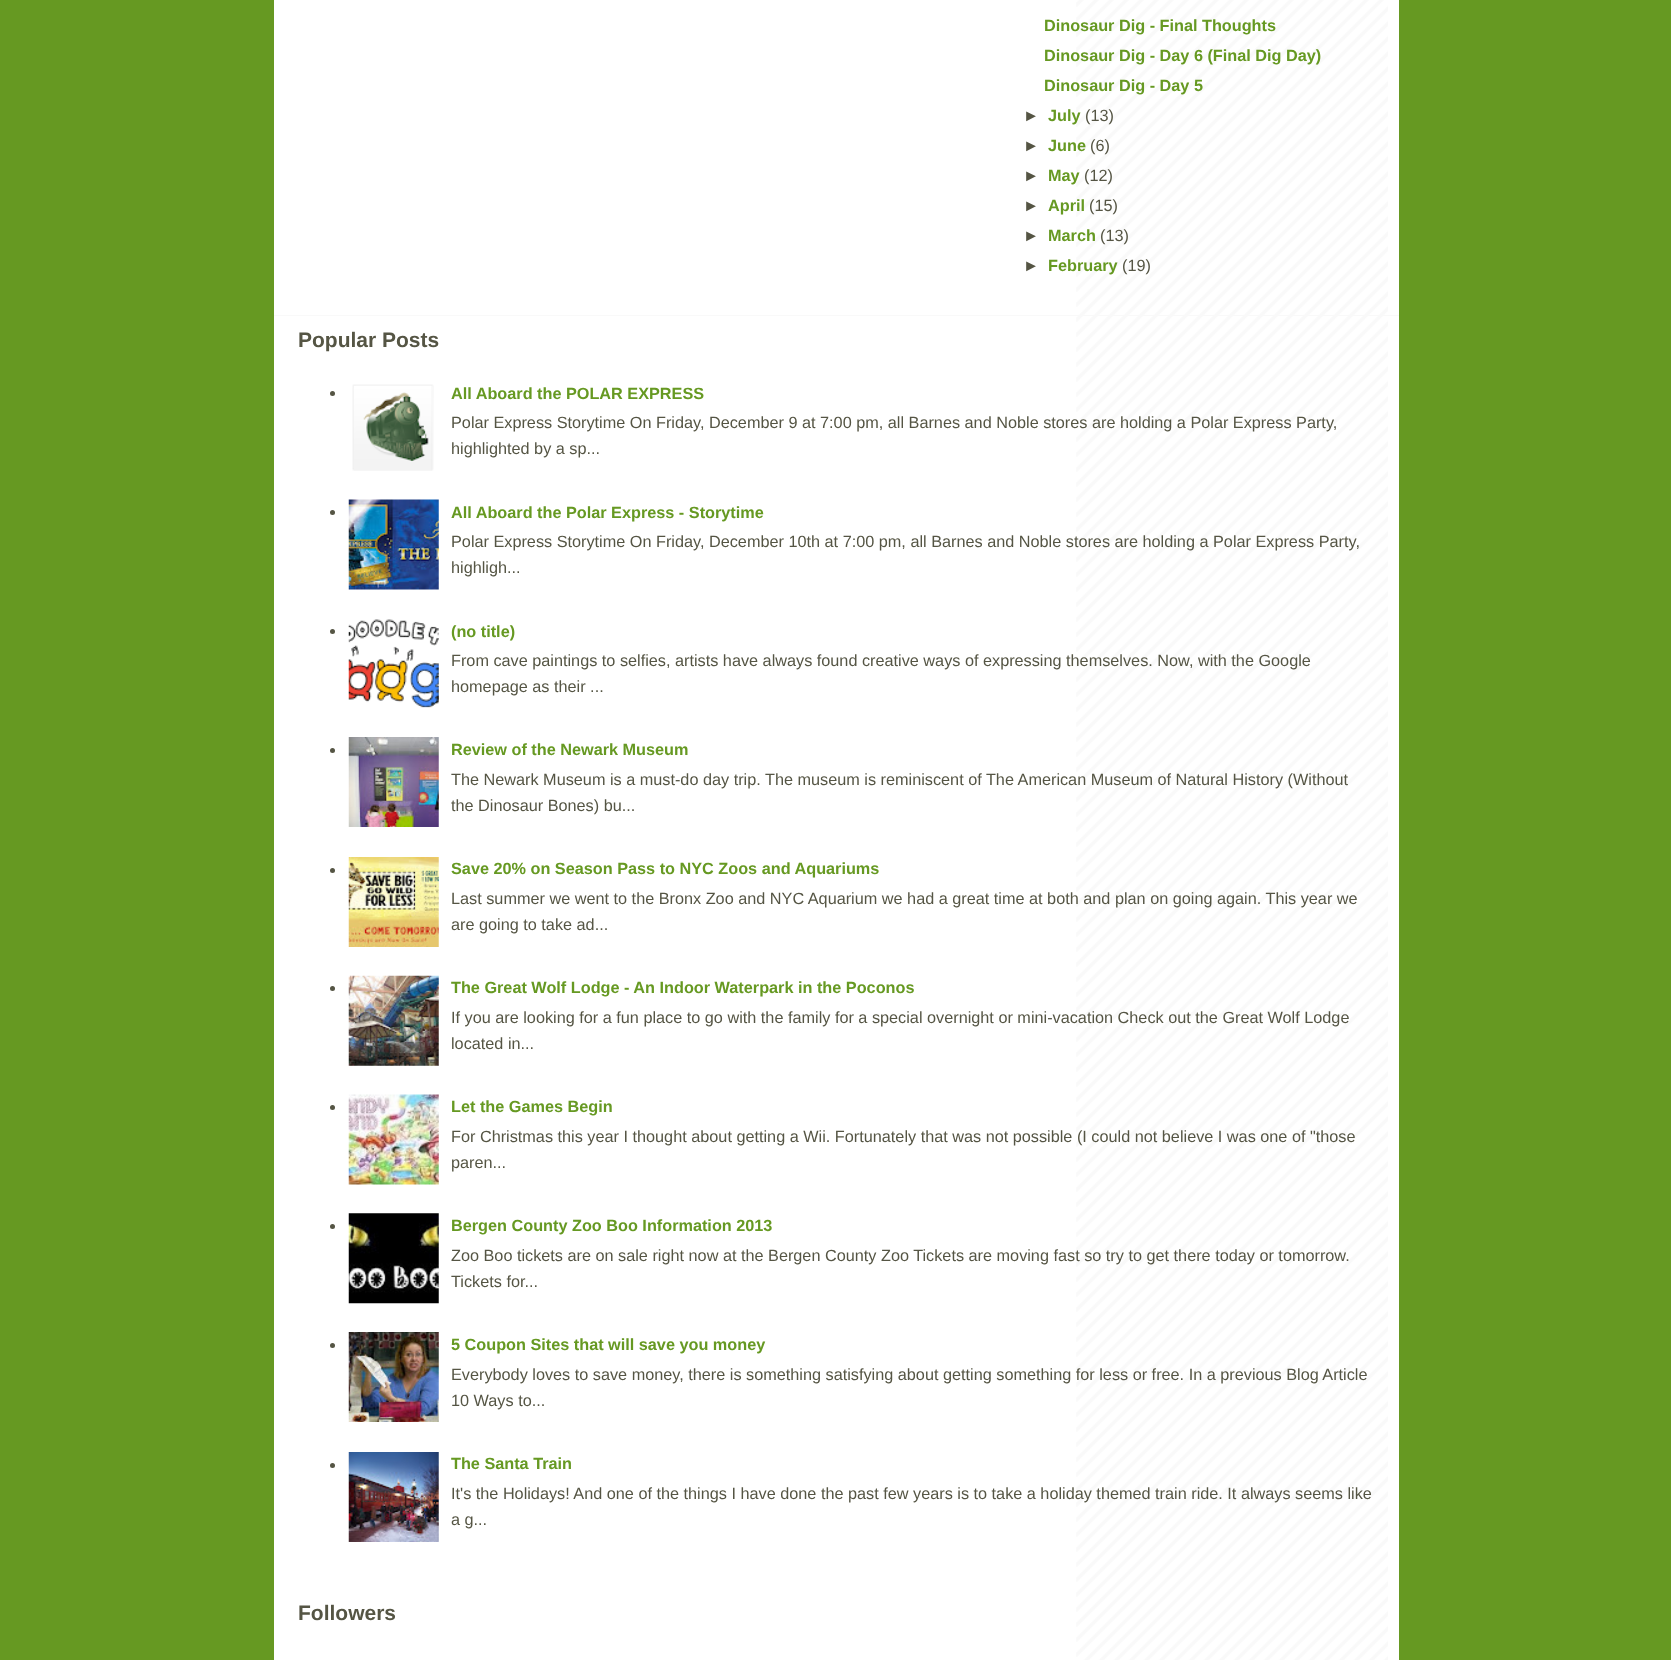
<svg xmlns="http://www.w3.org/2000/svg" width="1671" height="1660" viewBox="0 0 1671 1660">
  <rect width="100%" height="100%" fill="rgb(102,153,34)"/>
  <rect x="274" y="0" width="1125" height="1660" fill="rgb(255,255,255)"/>
  <image x="1076" y="0" width="312" height="1660" href="pic1.png"/>
  <g font-family="Liberation Sans" font-size="16.25" font-weight="bold" fill="rgb(102,153,34)">
    <text>
      <tspan x="1044" y="31">Dinosaur Dig - Final Thoughts</tspan>
      <tspan x="1044" y="61">Dinosaur Dig - Day 6 (Final Dig Day)</tspan>
      <tspan x="1044" y="91">Dinosaur Dig - Day 5</tspan>
    </text>
  </g>
  <text x="1023" y="121" font-family="Liberation Sans" font-size="16.25" font-weight="bold" fill="rgb(85,85,68)">►</text>
  <text x="1048" y="121" font-family="Liberation Sans" font-size="16.25" font-weight="bold" fill="rgb(102,153,34)">July</text>
  <text x="1085" y="121" font-family="Liberation Sans" font-size="16.25" fill="rgb(85,85,68)">(13)</text>
  <text x="1023" y="151" font-family="Liberation Sans" font-size="16.25" font-weight="bold" fill="rgb(85,85,68)">►</text>
  <text x="1048" y="151" font-family="Liberation Sans" font-size="16.25" font-weight="bold" fill="rgb(102,153,34)">June</text>
  <text x="1090" y="151" font-family="Liberation Sans" font-size="16.25" fill="rgb(85,85,68)">(6)</text>
  <text x="1023" y="181" font-family="Liberation Sans" font-size="16.25" font-weight="bold" fill="rgb(85,85,68)">►</text>
  <text x="1048" y="181" font-family="Liberation Sans" font-size="16.25" font-weight="bold" fill="rgb(102,153,34)">May</text>
  <text x="1084" y="181" font-family="Liberation Sans" font-size="16.25" fill="rgb(85,85,68)">(12)</text>
  <text x="1023" y="211" font-family="Liberation Sans" font-size="16.25" font-weight="bold" fill="rgb(85,85,68)">►</text>
  <text x="1048" y="211" font-family="Liberation Sans" font-size="16.25" font-weight="bold" fill="rgb(102,153,34)">April</text>
  <text x="1089" y="211" font-family="Liberation Sans" font-size="16.25" fill="rgb(85,85,68)">(15)</text>
  <text x="1023" y="241" font-family="Liberation Sans" font-size="16.25" font-weight="bold" fill="rgb(85,85,68)">►</text>
  <text x="1048" y="241" font-family="Liberation Sans" font-size="16.25" font-weight="bold" fill="rgb(102,153,34)">March</text>
  <text x="1100" y="241" font-family="Liberation Sans" font-size="16.25" fill="rgb(85,85,68)">(13)</text>
  <text x="1023" y="271" font-family="Liberation Sans" font-size="16.25" font-weight="bold" fill="rgb(85,85,68)">►</text>
  <text x="1048" y="271" font-family="Liberation Sans" font-size="16.25" font-weight="bold" fill="rgb(102,153,34)">February</text>
  <text x="1122" y="271" font-family="Liberation Sans" font-size="16.25" fill="rgb(85,85,68)">(19)</text>
  <rect x="274" y="315" width="1125" height="1" fill="rgb(249,249,249)"/>
  <text x="298" y="347" font-family="Liberation Sans" font-size="21" font-weight="bold" fill="rgb(85,85,68)">Popular Posts</text>
  <circle cx="332.5" cy="393.5" r="2.5" fill="rgb(85,85,68)"/>
  <image x="352" y="384" width="82" height="87" href="pic2.png"/>
  <text x="451" y="399" font-family="Liberation Sans" font-size="16.25" font-weight="bold" fill="rgb(102,153,34)">All Aboard the POLAR EXPRESS</text>
  <g font-family="Liberation Sans" font-size="16.25" fill="rgb(85,85,68)">
    <text>
      <tspan x="451" y="428">Polar Express Storytime On Friday, December 9 at 7:00 pm, all Barnes and Noble stores are holding a Polar Express Party,</tspan>
      <tspan x="451" y="454">highlighted by a sp...</tspan>
    </text>
  </g>
  <circle cx="332.5" cy="512.5" r="2.5" fill="rgb(85,85,68)"/>
  <image x="348" y="499" width="91" height="91" href="pic3.png"/>
  <text x="451" y="518" font-family="Liberation Sans" font-size="16.25" font-weight="bold" fill="rgb(102,153,34)">All Aboard the Polar Express - Storytime</text>
  <g font-family="Liberation Sans" font-size="16.25" fill="rgb(85,85,68)">
    <text>
      <tspan x="451" y="547">Polar Express Storytime On Friday, December 10th at 7:00 pm, all Barnes and Noble stores are holding a Polar Express Party,</tspan>
      <tspan x="451" y="573">highligh...</tspan>
    </text>
  </g>
  <circle cx="332.5" cy="631.5" r="2.5" fill="rgb(85,85,68)"/>
  <image x="348" y="619" width="91" height="89" href="pic4.png"/>
  <text x="451" y="637" font-family="Liberation Sans" font-size="16.25" font-weight="bold" fill="rgb(102,153,34)">(no title)</text>
  <g font-family="Liberation Sans" font-size="16.25" fill="rgb(85,85,68)">
    <text>
      <tspan x="451" y="666">From cave paintings to selfies, artists have always found creative ways of expressing themselves. Now, with the Google</tspan>
      <tspan x="451" y="692">homepage as their ...</tspan>
    </text>
  </g>
  <circle cx="332.5" cy="750.5" r="2.5" fill="rgb(85,85,68)"/>
  <image x="348" y="737" width="91" height="90" href="pic5.png"/>
  <text x="451" y="755" font-family="Liberation Sans" font-size="16.25" font-weight="bold" fill="rgb(102,153,34)">Review of the Newark Museum</text>
  <g font-family="Liberation Sans" font-size="16.25" fill="rgb(85,85,68)">
    <text>
      <tspan x="451" y="785">The Newark Museum is a must-do day trip. The museum is reminiscent of The American Museum of Natural History (Without</tspan>
      <tspan x="451" y="811">the Dinosaur Bones) bu...</tspan>
    </text>
  </g>
  <circle cx="332.5" cy="870.5" r="2.5" fill="rgb(85,85,68)"/>
  <image x="348" y="857" width="91" height="90" href="pic6.png"/>
  <text x="451" y="874" font-family="Liberation Sans" font-size="16.25" font-weight="bold" fill="rgb(102,153,34)">Save 20% on Season Pass to NYC Zoos and Aquariums</text>
  <g font-family="Liberation Sans" font-size="16.25" fill="rgb(85,85,68)">
    <text>
      <tspan x="451" y="904">Last summer we went to the Bronx Zoo and NYC Aquarium we had a great time at both and plan on going again. This year we</tspan>
      <tspan x="451" y="930">are going to take ad...</tspan>
    </text>
  </g>
  <circle cx="332.5" cy="988.5" r="2.5" fill="rgb(85,85,68)"/>
  <image x="348" y="975" width="91" height="91" href="pic7.png"/>
  <text x="451" y="993" font-family="Liberation Sans" font-size="16.25" font-weight="bold" fill="rgb(102,153,34)">The Great Wolf Lodge - An Indoor Waterpark in the Poconos</text>
  <g font-family="Liberation Sans" font-size="16.25" fill="rgb(85,85,68)">
    <text>
      <tspan x="451" y="1023">If you are looking for a fun place to go with the family for a special overnight or mini-vacation Check out the Great Wolf Lodge</tspan>
      <tspan x="451" y="1049">located in...</tspan>
    </text>
  </g>
  <circle cx="332.5" cy="1107.5" r="2.5" fill="rgb(85,85,68)"/>
  <image x="348" y="1094" width="91" height="91" href="pic8.png"/>
  <text x="451" y="1112" font-family="Liberation Sans" font-size="16.25" font-weight="bold" fill="rgb(102,153,34)">Let the Games Begin</text>
  <g font-family="Liberation Sans" font-size="16.25" fill="rgb(85,85,68)">
    <text>
      <tspan x="451" y="1142">For Christmas this year I thought about getting a Wii. Fortunately that was not possible (I could not believe I was one of "those</tspan>
      <tspan x="451" y="1168">paren...</tspan>
    </text>
  </g>
  <circle cx="332.5" cy="1226.5" r="2.5" fill="rgb(85,85,68)"/>
  <image x="348" y="1213" width="91" height="91" href="pic9.png"/>
  <text x="451" y="1231" font-family="Liberation Sans" font-size="16.25" font-weight="bold" fill="rgb(102,153,34)">Bergen County Zoo Boo Information 2013</text>
  <g font-family="Liberation Sans" font-size="16.25" fill="rgb(85,85,68)">
    <text>
      <tspan x="451" y="1261">Zoo Boo tickets are on sale right now at the Bergen County Zoo Tickets are moving fast so try to get there today or tomorrow.</tspan>
      <tspan x="451" y="1287">Tickets for...</tspan>
    </text>
  </g>
  <circle cx="332.5" cy="1345.5" r="2.5" fill="rgb(85,85,68)"/>
  <image x="348" y="1332" width="91" height="90" href="pic10.png"/>
  <text x="451" y="1350" font-family="Liberation Sans" font-size="16.25" font-weight="bold" fill="rgb(102,153,34)">5 Coupon Sites that will save you money</text>
  <g font-family="Liberation Sans" font-size="16.25" fill="rgb(85,85,68)">
    <text>
      <tspan x="451" y="1380">Everybody loves to save money, there is something satisfying about getting something for less or free. In a previous Blog Article</tspan>
      <tspan x="451" y="1406">10 Ways to...</tspan>
    </text>
  </g>
  <circle cx="332.5" cy="1465.5" r="2.5" fill="rgb(85,85,68)"/>
  <image x="348" y="1452" width="91" height="90" href="pic11.png"/>
  <text x="451" y="1469" font-family="Liberation Sans" font-size="16.25" font-weight="bold" fill="rgb(102,153,34)">The Santa Train</text>
  <g font-family="Liberation Sans" font-size="16.25" fill="rgb(85,85,68)">
    <text>
      <tspan x="451" y="1499">It's the Holidays! And one of the things I have done the past few years is to take a holiday themed train ride. It always seems like</tspan>
      <tspan x="451" y="1525">a g...</tspan>
    </text>
  </g>
  <text x="298" y="1620" font-family="Liberation Sans" font-size="21" font-weight="bold" fill="rgb(85,85,68)">Followers</text>
</svg>
